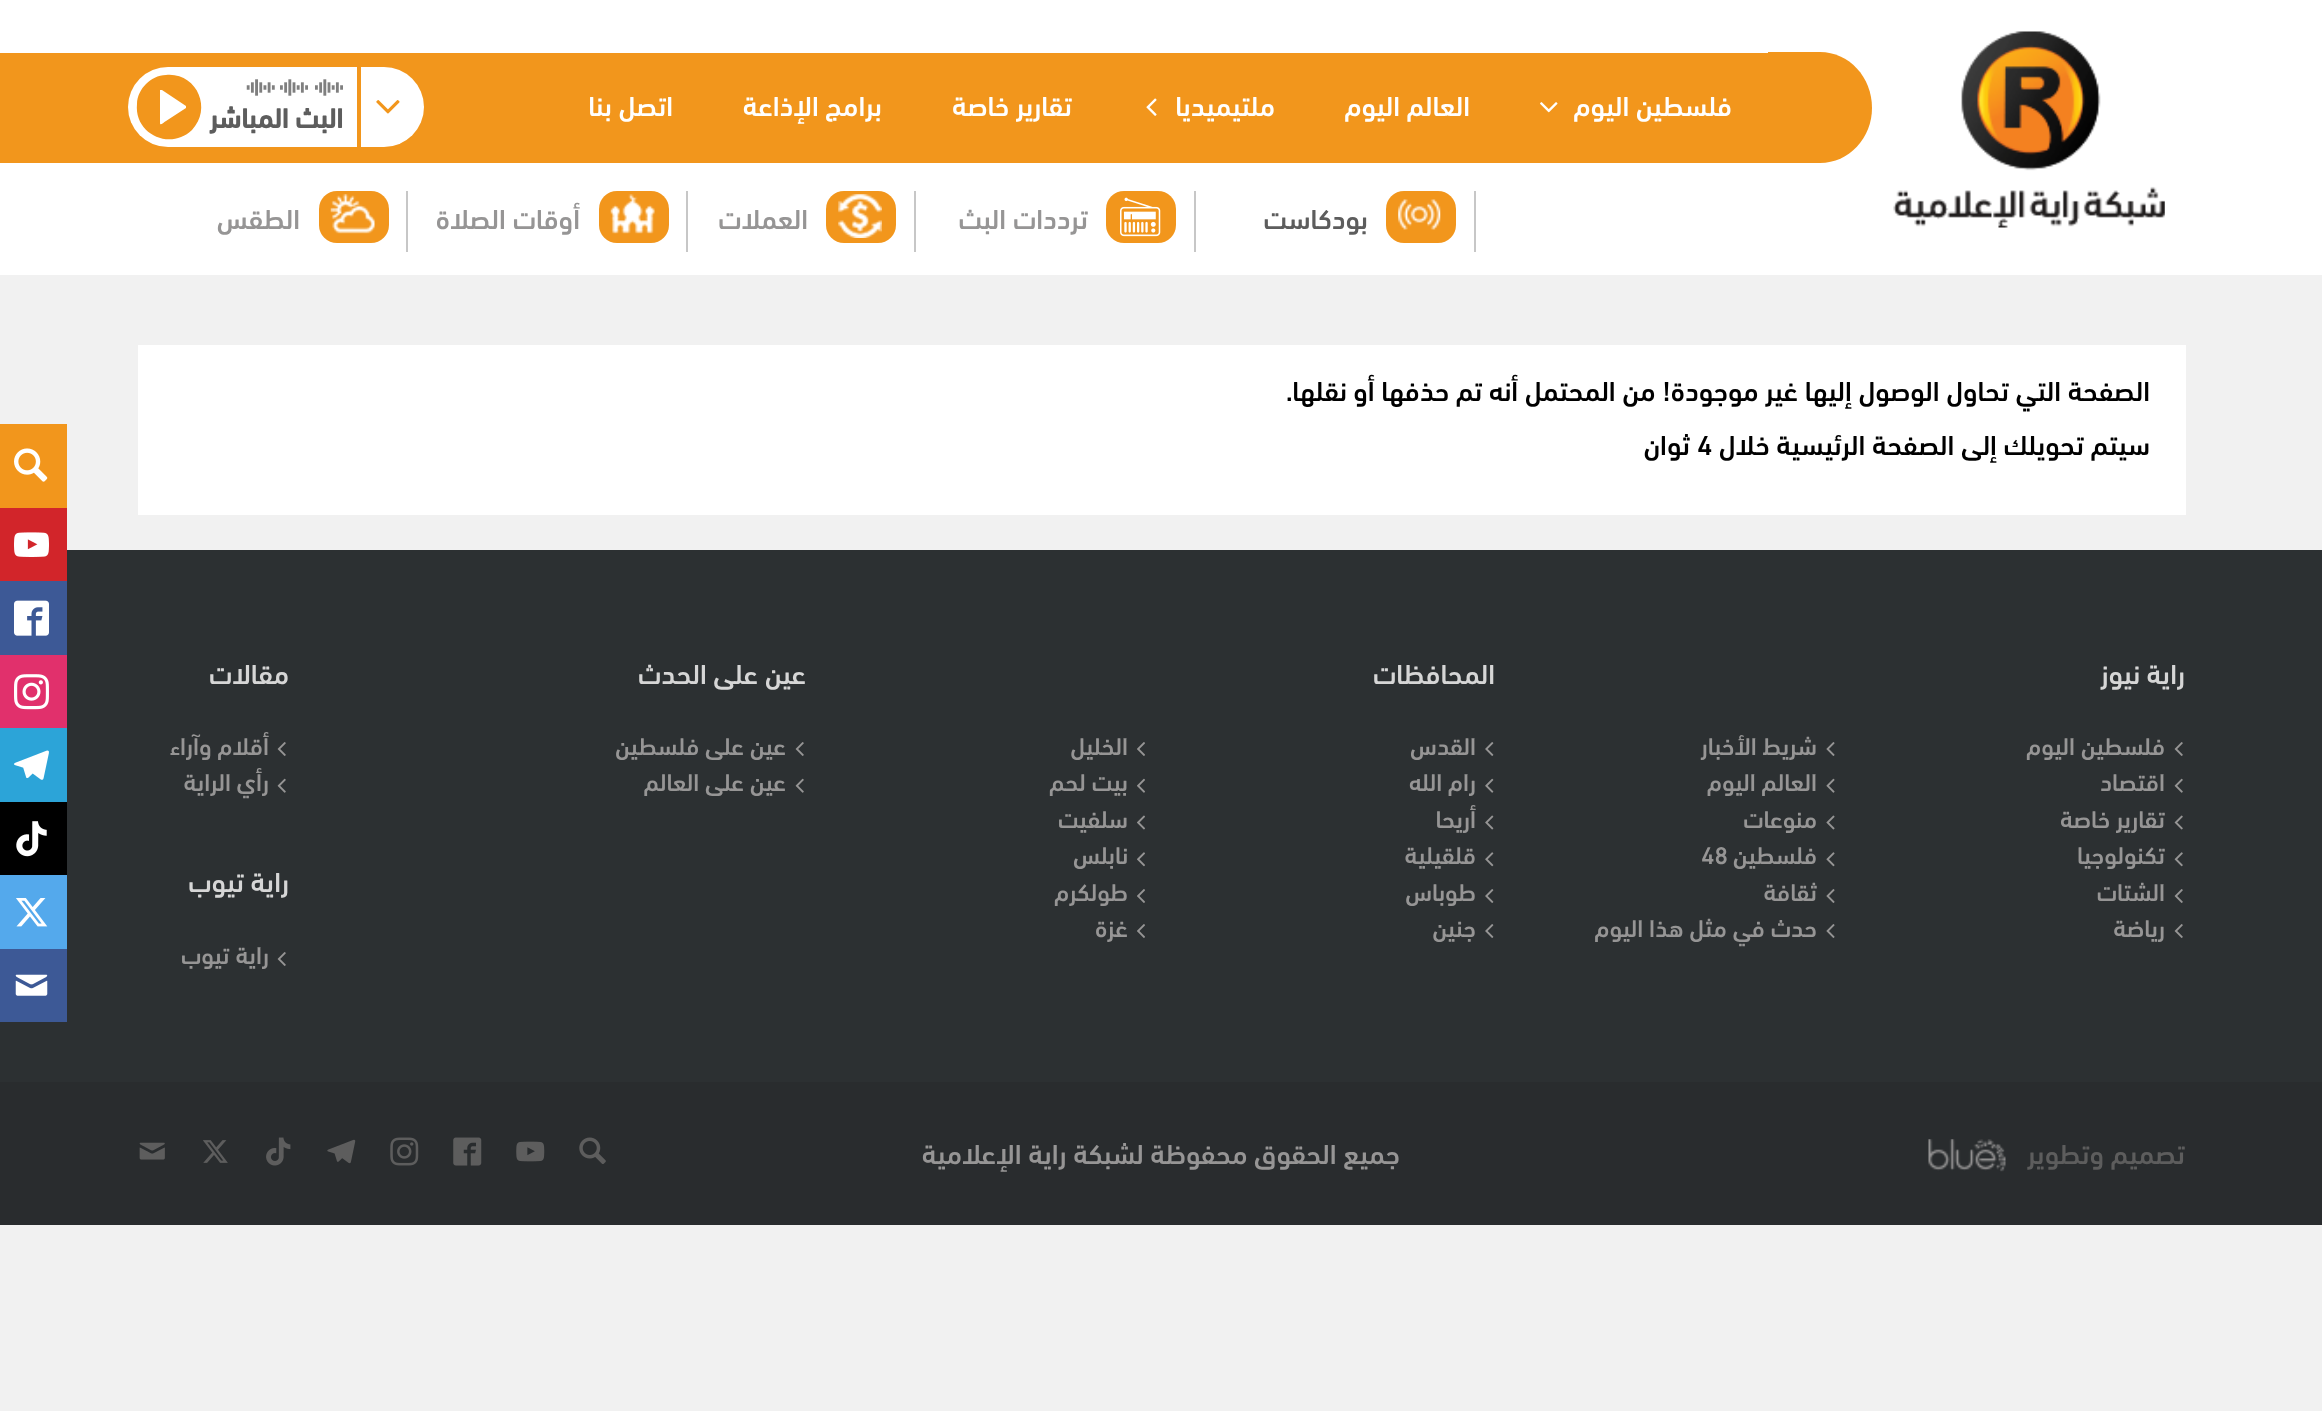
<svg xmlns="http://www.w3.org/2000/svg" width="2322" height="1411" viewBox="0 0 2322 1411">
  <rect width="100%" height="100%" fill="rgb(241,241,241)"/>
  <rect x="0" y="0" width="2322" height="275" fill="rgb(255,255,255)"/>
  <rect x="0" y="53" width="1768" height="110" fill="rgb(242,150,28)"/>
  <image x="1893" y="31" width="272" height="197" href="pic1.png"/>
  <path d="M1768 52H1820C1849 52 1872 77 1872 108C1872 138 1849 163 1820 163H1768Z" fill="rgb(242,150,28)"/>
  <text x="1732" y="116" font-family="'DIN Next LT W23'" font-size="28" font-weight="500" direction="rtl" fill="rgb(255,255,255)">فلسطين اليوم</text>
  <image x="1540" y="102" width="18" height="11" href="pic2.png"/>
  <g font-family="'DIN Next LT W23'" font-size="28" font-weight="500" direction="rtl" fill="rgb(255,255,255)">
    <text x="1470" y="116">العالم اليوم</text>
    <text x="1275" y="116">ملتيميديا</text>
  </g>
  <image x="1146" y="98" width="11" height="18" href="pic3.png"/>
  <g font-family="'DIN Next LT W23'" font-size="28" font-weight="500" direction="rtl" fill="rgb(255,255,255)">
    <text x="1072" y="116">تقارير خاصة</text>
    <text x="882" y="116">برامج الإذاعة</text>
    <text x="673" y="116">اتصل بنا</text>
  </g>
  <rect x="128" y="67" width="296" height="80" rx="40" fill="rgb(255,255,255)"/>
  <rect x="357" y="67" width="4" height="82" fill="rgb(242,150,28)"/>
  <image x="376" y="100" width="24" height="14" href="pic4.png"/>
  <image x="315" y="79" width="28" height="17" href="pic5.png"/>
  <image x="280" y="79" width="28" height="17" href="pic5.png"/>
  <image x="246" y="79" width="29" height="17" href="pic6.png"/>
  <text x="343" y="128" font-family="'DIN Next LT W23'" font-size="28" font-weight="bold" direction="rtl" fill="rgb(93,93,93)">البث المباشر</text>
  <path d="M146 84C151 79 158 75 166 75C196 72 213 108 192 130C170 151 134 134 137 104C137 96 141 89 146 84ZM186 108V106L162 90H160V123C160 126 163 123 166 121Z" fill="rgb(242,150,28)"/>
  <rect x="1474" y="191" width="2" height="61" fill="rgb(199,199,199)"/>
  <rect x="1386" y="191" width="70" height="52" rx="18" fill="rgb(242,150,28)"/>
  <image x="1398" y="199" width="43" height="31" href="pic7.png"/>
  <text x="1368" y="229" font-family="'DIN Next LT W23'" font-size="28" font-weight="500" direction="rtl" fill="rgb(93,93,93)">بودكاست</text>
  <rect x="1194" y="191" width="2" height="61" fill="rgb(199,199,199)"/>
  <rect x="1106" y="191" width="70" height="52" rx="18" fill="rgb(242,150,28)"/>
  <image x="1120" y="197" width="41" height="40" href="pic8.png"/>
  <text x="1088" y="229" font-family="'DIN Next LT W23'" font-size="28" font-weight="500" direction="rtl" fill="rgb(150,149,149)">ترددات البث</text>
  <rect x="914" y="191" width="2" height="61" fill="rgb(199,199,199)"/>
  <rect x="826" y="191" width="70" height="52" rx="18" fill="rgb(242,150,28)"/>
  <image x="838" y="194" width="44" height="44" href="pic9.png"/>
  <text x="808" y="229" font-family="'DIN Next LT W23'" font-size="28" font-weight="500" direction="rtl" fill="rgb(150,149,149)">العملات</text>
  <rect x="686" y="191" width="2" height="61" fill="rgb(199,199,199)"/>
  <rect x="599" y="191" width="70" height="52" rx="18" fill="rgb(242,150,28)"/>
  <image x="610" y="194" width="45" height="40" href="pic10.png"/>
  <text x="580" y="229" font-family="'DIN Next LT W23'" font-size="28" font-weight="500" direction="rtl" fill="rgb(150,149,149)">أوقات الصلاة</text>
  <rect x="406" y="191" width="2" height="61" fill="rgb(199,199,199)"/>
  <rect x="319" y="191" width="70" height="52" rx="18" fill="rgb(242,150,28)"/>
  <image x="330" y="194" width="45" height="40" href="pic11.png"/>
  <text x="300" y="229" font-family="'DIN Next LT W23'" font-size="28" font-weight="500" direction="rtl" fill="rgb(150,149,149)">الطقس</text>
  <rect x="138" y="345" width="2048" height="170" fill="rgb(255,255,255)"/>
  <g font-family="'DIN Next LT W23'" font-size="28" font-weight="500" direction="rtl" fill="rgb(0,0,0)">
    <text>
      <tspan x="2150" y="401">الصفحة التي تحاول الوصول إليها غير موجودة! من المحتمل أنه تم حذفها أو نقلها.</tspan>
      <tspan x="2150" y="455">سيتم تحويلك إلى الصفحة الرئيسية خلال</tspan>
    </text>
  </g>
  <text x="1697" y="455" font-family="'DIN Next LT W23'" font-size="28" font-weight="500" fill="rgb(0,0,0)">4</text>
  <text x="1690" y="455" font-family="'DIN Next LT W23'" font-size="28" font-weight="500" direction="rtl" fill="rgb(0,0,0)">ثوان</text>
  <rect x="0" y="424" width="67" height="84" fill="rgb(242,150,28)"/>
  <image x="14" y="448" width="34" height="34" href="pic12.png"/>
  <rect x="0" y="550" width="2322" height="532" fill="rgb(44,48,50)"/>
  <rect x="0" y="508" width="67" height="73" fill="rgb(210,37,42)"/>
  <image x="14" y="532" width="35" height="25" href="pic13.png"/>
  <rect x="0" y="581" width="67" height="74" fill="rgb(61,89,150)"/>
  <image x="14" y="600" width="35" height="36" href="pic14.png"/>
  <rect x="0" y="655" width="67" height="73" fill="rgb(225,48,108)"/>
  <image x="14" y="674" width="35" height="36" href="pic15.png"/>
  <rect x="0" y="728" width="67" height="74" fill="rgb(44,164,216)"/>
  <image x="14" y="750" width="35" height="30" href="pic16.png"/>
  <rect x="0" y="802" width="67" height="73" fill="rgb(0,0,0)"/>
  <image x="16" y="821" width="31" height="36" href="pic17.png"/>
  <rect x="0" y="875" width="67" height="74" fill="rgb(84,169,236)"/>
  <image x="16" y="898" width="32" height="29" href="pic18.png"/>
  <rect x="0" y="949" width="67" height="73" fill="rgb(61,89,150)"/>
  <image x="15" y="974" width="33" height="22" href="pic19.png"/>
  <text x="2185" y="684" font-family="'DIN Next LT W23'" font-size="28" font-weight="500" direction="rtl" fill="rgb(214,214,214)">راية نيوز</text>
  <image x="2174" y="742" width="9" height="14" href="pic20.png"/>
  <text x="2165" y="755" font-family="'DIN Next LT W23'" font-size="24.5" font-weight="500" direction="rtl" fill="rgb(150,149,149)">فلسطين اليوم</text>
  <image x="1826" y="742" width="9" height="14" href="pic21.png"/>
  <text x="1817" y="755" font-family="'DIN Next LT W23'" font-size="24.5" font-weight="500" direction="rtl" fill="rgb(150,149,149)">شريط الأخبار</text>
  <image x="2174" y="778" width="9" height="15" href="pic22.png"/>
  <text x="2165" y="791" font-family="'DIN Next LT W23'" font-size="24.5" font-weight="500" direction="rtl" fill="rgb(150,149,149)">اقتصاد</text>
  <image x="1826" y="778" width="9" height="15" href="pic23.png"/>
  <text x="1817" y="791" font-family="'DIN Next LT W23'" font-size="24.5" font-weight="500" direction="rtl" fill="rgb(150,149,149)">العالم اليوم</text>
  <image x="2174" y="815" width="9" height="15" href="pic24.png"/>
  <text x="2165" y="828" font-family="'DIN Next LT W23'" font-size="24.5" font-weight="500" direction="rtl" fill="rgb(150,149,149)">تقارير خاصة</text>
  <image x="1826" y="815" width="9" height="15" href="pic25.png"/>
  <text x="1817" y="828" font-family="'DIN Next LT W23'" font-size="24.5" font-weight="500" direction="rtl" fill="rgb(150,149,149)">منوعات</text>
  <image x="2174" y="852" width="9" height="15" href="pic26.png"/>
  <text x="2165" y="864" font-family="'DIN Next LT W23'" font-size="24.5" font-weight="500" direction="rtl" fill="rgb(150,149,149)">تكنولوجيا</text>
  <image x="1826" y="852" width="9" height="15" href="pic27.png"/>
  <text x="1817" y="864" font-family="'DIN Next LT W23'" font-size="24.5" font-weight="500" direction="rtl" fill="rgb(150,149,149)">فلسطين</text>
  <text x="1701" y="864" font-family="'DIN Next LT W23'" font-size="24.5" font-weight="500" fill="rgb(150,149,149)">48</text>
  <image x="2174" y="889" width="9" height="14" href="pic20.png"/>
  <text x="2165" y="901" font-family="'DIN Next LT W23'" font-size="24.5" font-weight="500" direction="rtl" fill="rgb(150,149,149)">الشتات</text>
  <image x="1826" y="889" width="9" height="14" href="pic21.png"/>
  <text x="1817" y="901" font-family="'DIN Next LT W23'" font-size="24.5" font-weight="500" direction="rtl" fill="rgb(150,149,149)">ثقافة</text>
  <image x="2174" y="924" width="9" height="14" href="pic20.png"/>
  <text x="2165" y="937" font-family="'DIN Next LT W23'" font-size="24.5" font-weight="500" direction="rtl" fill="rgb(150,149,149)">رياضة</text>
  <image x="1826" y="924" width="9" height="14" href="pic21.png"/>
  <text x="1817" y="937" font-family="'DIN Next LT W23'" font-size="24.5" font-weight="500" direction="rtl" fill="rgb(150,149,149)">حدث في مثل هذا اليوم</text>
  <text x="1495" y="684" font-family="'DIN Next LT W23'" font-size="28" font-weight="500" direction="rtl" fill="rgb(214,214,214)">المحافظات</text>
  <image x="1485" y="742" width="9" height="14" href="pic28.png"/>
  <text x="1476" y="755" font-family="'DIN Next LT W23'" font-size="24.5" font-weight="500" direction="rtl" fill="rgb(150,149,149)">القدس</text>
  <image x="1137" y="742" width="8" height="14" href="pic29.png"/>
  <text x="1128" y="755" font-family="'DIN Next LT W23'" font-size="24.5" font-weight="500" direction="rtl" fill="rgb(150,149,149)">الخليل</text>
  <image x="1485" y="778" width="9" height="15" href="pic30.png"/>
  <text x="1476" y="791" font-family="'DIN Next LT W23'" font-size="24.5" font-weight="500" direction="rtl" fill="rgb(150,149,149)">رام الله</text>
  <image x="1137" y="778" width="8" height="15" href="pic31.png"/>
  <text x="1128" y="791" font-family="'DIN Next LT W23'" font-size="24.5" font-weight="500" direction="rtl" fill="rgb(150,149,149)">بيت لحم</text>
  <image x="1485" y="815" width="9" height="15" href="pic32.png"/>
  <text x="1476" y="828" font-family="'DIN Next LT W23'" font-size="24.5" font-weight="500" direction="rtl" fill="rgb(150,149,149)">أريحا</text>
  <image x="1137" y="815" width="8" height="15" href="pic33.png"/>
  <text x="1128" y="828" font-family="'DIN Next LT W23'" font-size="24.5" font-weight="500" direction="rtl" fill="rgb(150,149,149)">سلفيت</text>
  <image x="1485" y="852" width="9" height="15" href="pic34.png"/>
  <text x="1476" y="864" font-family="'DIN Next LT W23'" font-size="24.5" font-weight="500" direction="rtl" fill="rgb(150,149,149)">قلقيلية</text>
  <image x="1137" y="852" width="8" height="15" href="pic35.png"/>
  <text x="1128" y="864" font-family="'DIN Next LT W23'" font-size="24.5" font-weight="500" direction="rtl" fill="rgb(150,149,149)">نابلس</text>
  <image x="1485" y="889" width="9" height="14" href="pic28.png"/>
  <text x="1476" y="901" font-family="'DIN Next LT W23'" font-size="24.5" font-weight="500" direction="rtl" fill="rgb(150,149,149)">طوباس</text>
  <image x="1137" y="889" width="8" height="14" href="pic29.png"/>
  <text x="1128" y="901" font-family="'DIN Next LT W23'" font-size="24.5" font-weight="500" direction="rtl" fill="rgb(150,149,149)">طولكرم</text>
  <image x="1485" y="924" width="9" height="14" href="pic28.png"/>
  <text x="1476" y="937" font-family="'DIN Next LT W23'" font-size="24.5" font-weight="500" direction="rtl" fill="rgb(150,149,149)">جنين</text>
  <image x="1137" y="924" width="8" height="14" href="pic29.png"/>
  <text x="1128" y="937" font-family="'DIN Next LT W23'" font-size="24.5" font-weight="500" direction="rtl" fill="rgb(150,149,149)">غزة</text>
  <text x="806" y="684" font-family="'DIN Next LT W23'" font-size="28" font-weight="500" direction="rtl" fill="rgb(214,214,214)">عين على الحدث</text>
  <image x="795" y="742" width="9" height="14" href="pic20.png"/>
  <text x="786" y="755" font-family="'DIN Next LT W23'" font-size="24.5" font-weight="500" direction="rtl" fill="rgb(150,149,149)">عين على فلسطين</text>
  <image x="795" y="778" width="9" height="15" href="pic22.png"/>
  <text x="786" y="791" font-family="'DIN Next LT W23'" font-size="24.5" font-weight="500" direction="rtl" fill="rgb(150,149,149)">عين على العالم</text>
  <text x="289" y="684" font-family="'DIN Next LT W23'" font-size="28" font-weight="500" direction="rtl" fill="rgb(214,214,214)">مقالات</text>
  <image x="277" y="742" width="9" height="14" href="pic20.png"/>
  <text x="269" y="755" font-family="'DIN Next LT W23'" font-size="24.5" font-weight="500" direction="rtl" fill="rgb(150,149,149)">أقلام وآراء</text>
  <image x="277" y="778" width="9" height="15" href="pic22.png"/>
  <text x="269" y="791" font-family="'DIN Next LT W23'" font-size="24.5" font-weight="500" direction="rtl" fill="rgb(150,149,149)">رأي الراية</text>
  <text x="289" y="892" font-family="'DIN Next LT W23'" font-size="28" font-weight="500" direction="rtl" fill="rgb(214,214,214)">راية تيوب</text>
  <image x="277" y="952" width="9" height="14" href="pic20.png"/>
  <text x="269" y="964" font-family="'DIN Next LT W23'" font-size="24.5" font-weight="500" direction="rtl" fill="rgb(150,149,149)">راية تيوب</text>
  <rect x="0" y="1082" width="2322" height="143" fill="rgb(41,44,46)"/>
  <text x="2185" y="1164" font-family="'DIN Next LT W23'" font-size="28" font-weight="500" direction="rtl" fill="rgb(93,93,93)">تصميم وتطوير</text>
  <image x="1928" y="1139" width="78" height="33" href="pic36.png"/>
  <text x="1400" y="1164" font-family="'DIN Next LT W23'" font-size="28" font-weight="500" direction="rtl" fill="rgb(150,149,149)">جميع الحقوق محفوظة لشبكة راية الإعلامية</text>
  <image x="579" y="1137" width="27" height="27" href="pic37.png"/>
  <image x="516" y="1141" width="29" height="21" href="pic38.png"/>
  <image x="453" y="1137" width="29" height="29" href="pic39.png"/>
  <image x="390" y="1137" width="29" height="29" href="pic40.png"/>
  <image x="327" y="1139" width="29" height="25" href="pic41.png"/>
  <image x="266" y="1137" width="25" height="29" href="pic42.png"/>
  <image x="203" y="1140" width="25" height="23" href="pic43.png"/>
  <image x="139" y="1142" width="26" height="18" href="pic44.png"/>
</svg>
